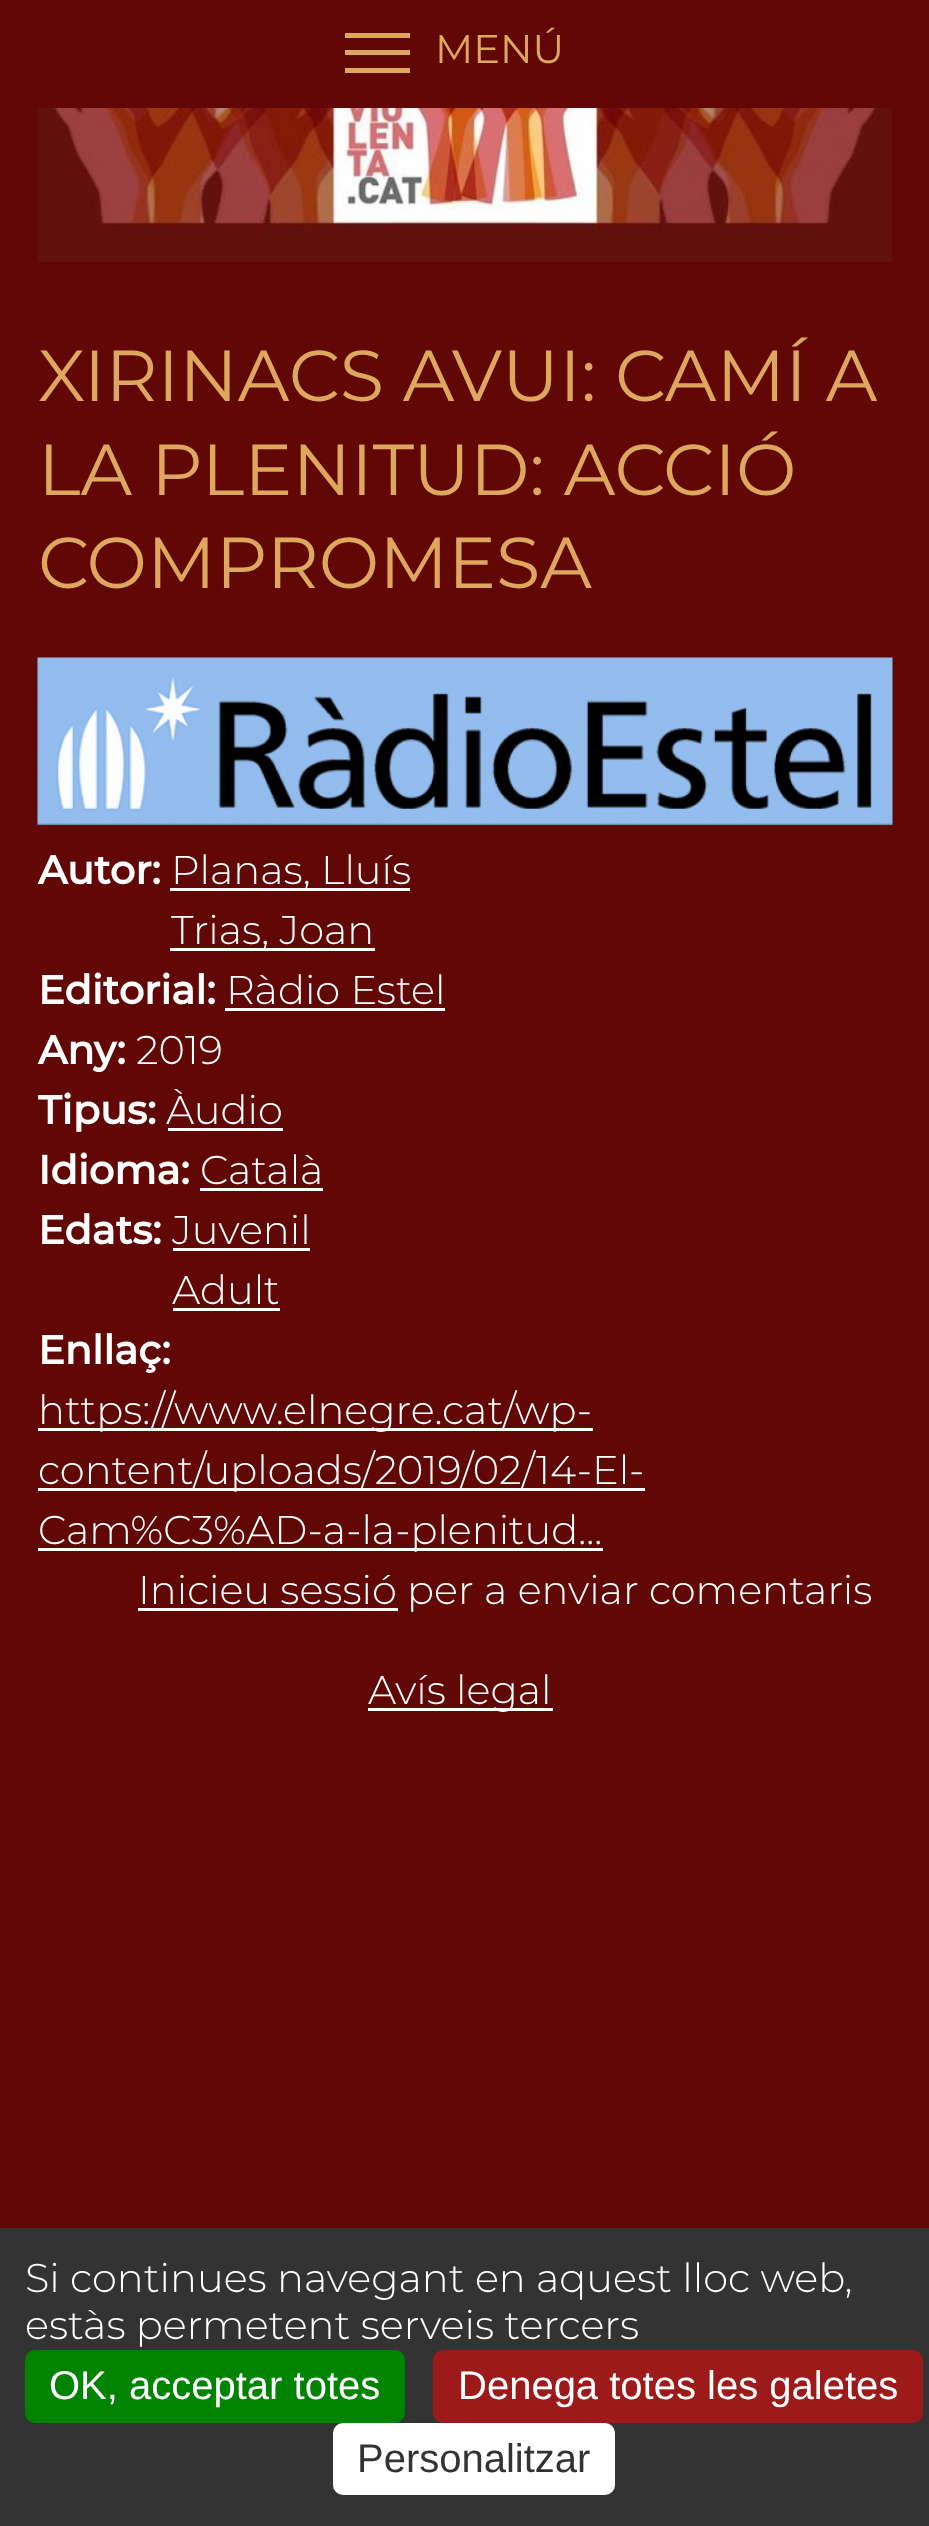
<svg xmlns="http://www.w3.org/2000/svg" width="929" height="2526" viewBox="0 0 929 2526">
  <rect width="100%" height="100%" fill="rgb(97,7,5)"/>
  <rect x="345" y="50" width="65" height="5" fill="rgb(222,167,94)"/>
  <rect x="345" y="33" width="65" height="5" fill="rgb(222,167,94)"/>
  <rect x="345" y="68" width="65" height="5" fill="rgb(222,167,94)"/>
  <text x="435" y="63" font-family="Montserrat" font-size="40" fill="rgb(222,167,94)">MENÚ</text>
  <image x="37" y="108" width="856" height="155" href="pic1.png"/>
  <g font-family="Montserrat" font-size="72" fill="rgb(222,167,94)">
    <text>
      <tspan x="38" y="401">XIRINACS AVUI: CAMÍ A</tspan>
      <tspan x="38" y="495">LA PLENITUD: ACCIÓ</tspan>
      <tspan x="38" y="588">COMPROMESA</tspan>
    </text>
  </g>
  <image x="37" y="657" width="856" height="168" href="pic2.png"/>
  <text x="38" y="884" font-family="Montserrat" font-size="40" font-weight="bold" fill="rgb(255,255,255)">Autor:</text>
  <rect x="170" y="888" width="240" height="3" fill="rgb(255,255,255)"/>
  <text x="171" y="884" font-family="Montserrat" font-size="40" font-weight="300" fill="rgb(255,255,255)">Planas, Lluís</text>
  <rect x="170" y="948" width="205" height="3" fill="rgb(255,255,255)"/>
  <text x="171" y="944" font-family="Montserrat" font-size="40" font-weight="300" fill="rgb(255,255,255)">Trias, Joan</text>
  <text x="38" y="1004" font-family="Montserrat" font-size="40" font-weight="bold" fill="rgb(255,255,255)">Editorial:</text>
  <text x="226" y="1004" font-family="Montserrat" font-size="40" font-weight="300" fill="rgb(255,255,255)">Ràdio Estel</text>
  <rect x="225" y="1008" width="220" height="3" fill="rgb(255,255,255)"/>
  <text x="38" y="1064" font-family="Montserrat" font-size="40" font-weight="bold" fill="rgb(255,255,255)">Any:</text>
  <text x="136" y="1064" font-family="Montserrat" font-size="40" font-weight="300" fill="rgb(255,255,255)">2019</text>
  <text x="38" y="1124" font-family="Montserrat" font-size="40" font-weight="bold" fill="rgb(255,255,255)">Tipus:</text>
  <text x="166" y="1124" font-family="Montserrat" font-size="40" font-weight="300" fill="rgb(255,255,255)">Àudio</text>
  <rect x="168" y="1128" width="115" height="3" fill="rgb(255,255,255)"/>
  <text x="38" y="1184" font-family="Montserrat" font-size="40" font-weight="bold" fill="rgb(255,255,255)">Idioma:</text>
  <text x="200" y="1184" font-family="Montserrat" font-size="40" font-weight="300" fill="rgb(255,255,255)">Català</text>
  <rect x="200" y="1188" width="123" height="3" fill="rgb(255,255,255)"/>
  <text x="38" y="1244" font-family="Montserrat" font-size="40" font-weight="bold" fill="rgb(255,255,255)">Edats:</text>
  <text x="172" y="1244" font-family="Montserrat" font-size="40" font-weight="300" fill="rgb(255,255,255)">Juvenil</text>
  <rect x="173" y="1248" width="137" height="3" fill="rgb(255,255,255)"/>
  <text x="172" y="1304" font-family="Montserrat" font-size="40" font-weight="300" fill="rgb(255,255,255)">Adult</text>
  <rect x="173" y="1308" width="107" height="3" fill="rgb(255,255,255)"/>
  <text x="38" y="1364" font-family="Montserrat" font-size="40" font-weight="bold" fill="rgb(255,255,255)">Enllaç:</text>
  <rect x="38" y="1428" width="555" height="3" fill="rgb(255,255,255)"/>
  <text x="38" y="1424" font-family="Montserrat" font-size="40" font-weight="300" fill="rgb(255,255,255)">https://www.elnegre.cat/wp-</text>
  <rect x="38" y="1488" width="607" height="3" fill="rgb(255,255,255)"/>
  <text x="38" y="1484" font-family="Montserrat" font-size="40" font-weight="300" fill="rgb(255,255,255)">content/uploads/2019/02/14-El-</text>
  <rect x="38" y="1548" width="565" height="3" fill="rgb(255,255,255)"/>
  <text x="38" y="1544" font-family="Montserrat" font-size="40" font-weight="300" fill="rgb(255,255,255)">Cam%C3%AD-a-la-plenitud...</text>
  <rect x="138" y="1608" width="260" height="3" fill="rgb(255,255,255)"/>
  <text x="138" y="1604" font-family="Montserrat" font-size="40" font-weight="300" fill="rgb(255,255,255)">Inicieu sessió per a enviar comentaris</text>
  <rect x="368" y="1708" width="185" height="3" fill="rgb(255,255,255)"/>
  <text x="368" y="1704" font-family="Montserrat" font-size="40" font-weight="300" fill="rgb(255,255,255)">Avís legal</text>
  <rect x="0" y="2228" width="929" height="298" fill="rgb(51,51,51)"/>
  <g font-family="Montserrat" font-size="40" font-weight="300" fill="rgb(255,255,255)">
    <text>
      <tspan x="25" y="2292">Si continues navegant en aquest lloc web,</tspan>
      <tspan x="25" y="2339">estàs permetent serveis tercers</tspan>
    </text>
  </g>
  <rect x="25" y="2350" width="380" height="73" rx="10" fill="rgb(0,131,0)"/>
  <text x="49" y="2399" font-family="Liberation Sans" font-size="40" fill="rgb(255,255,255)">OK, acceptar totes</text>
  <rect x="433" y="2350" width="490" height="73" rx="10" fill="rgb(156,26,26)"/>
  <text x="458" y="2399" font-family="Liberation Sans" font-size="40" fill="rgb(255,255,255)">Denega totes les galetes</text>
  <rect x="333" y="2423" width="282" height="72" rx="10" fill="rgb(255,255,255)"/>
  <text x="357" y="2472" font-family="Liberation Sans" font-size="40" fill="rgb(51,51,51)">Personalitzar</text>
</svg>
